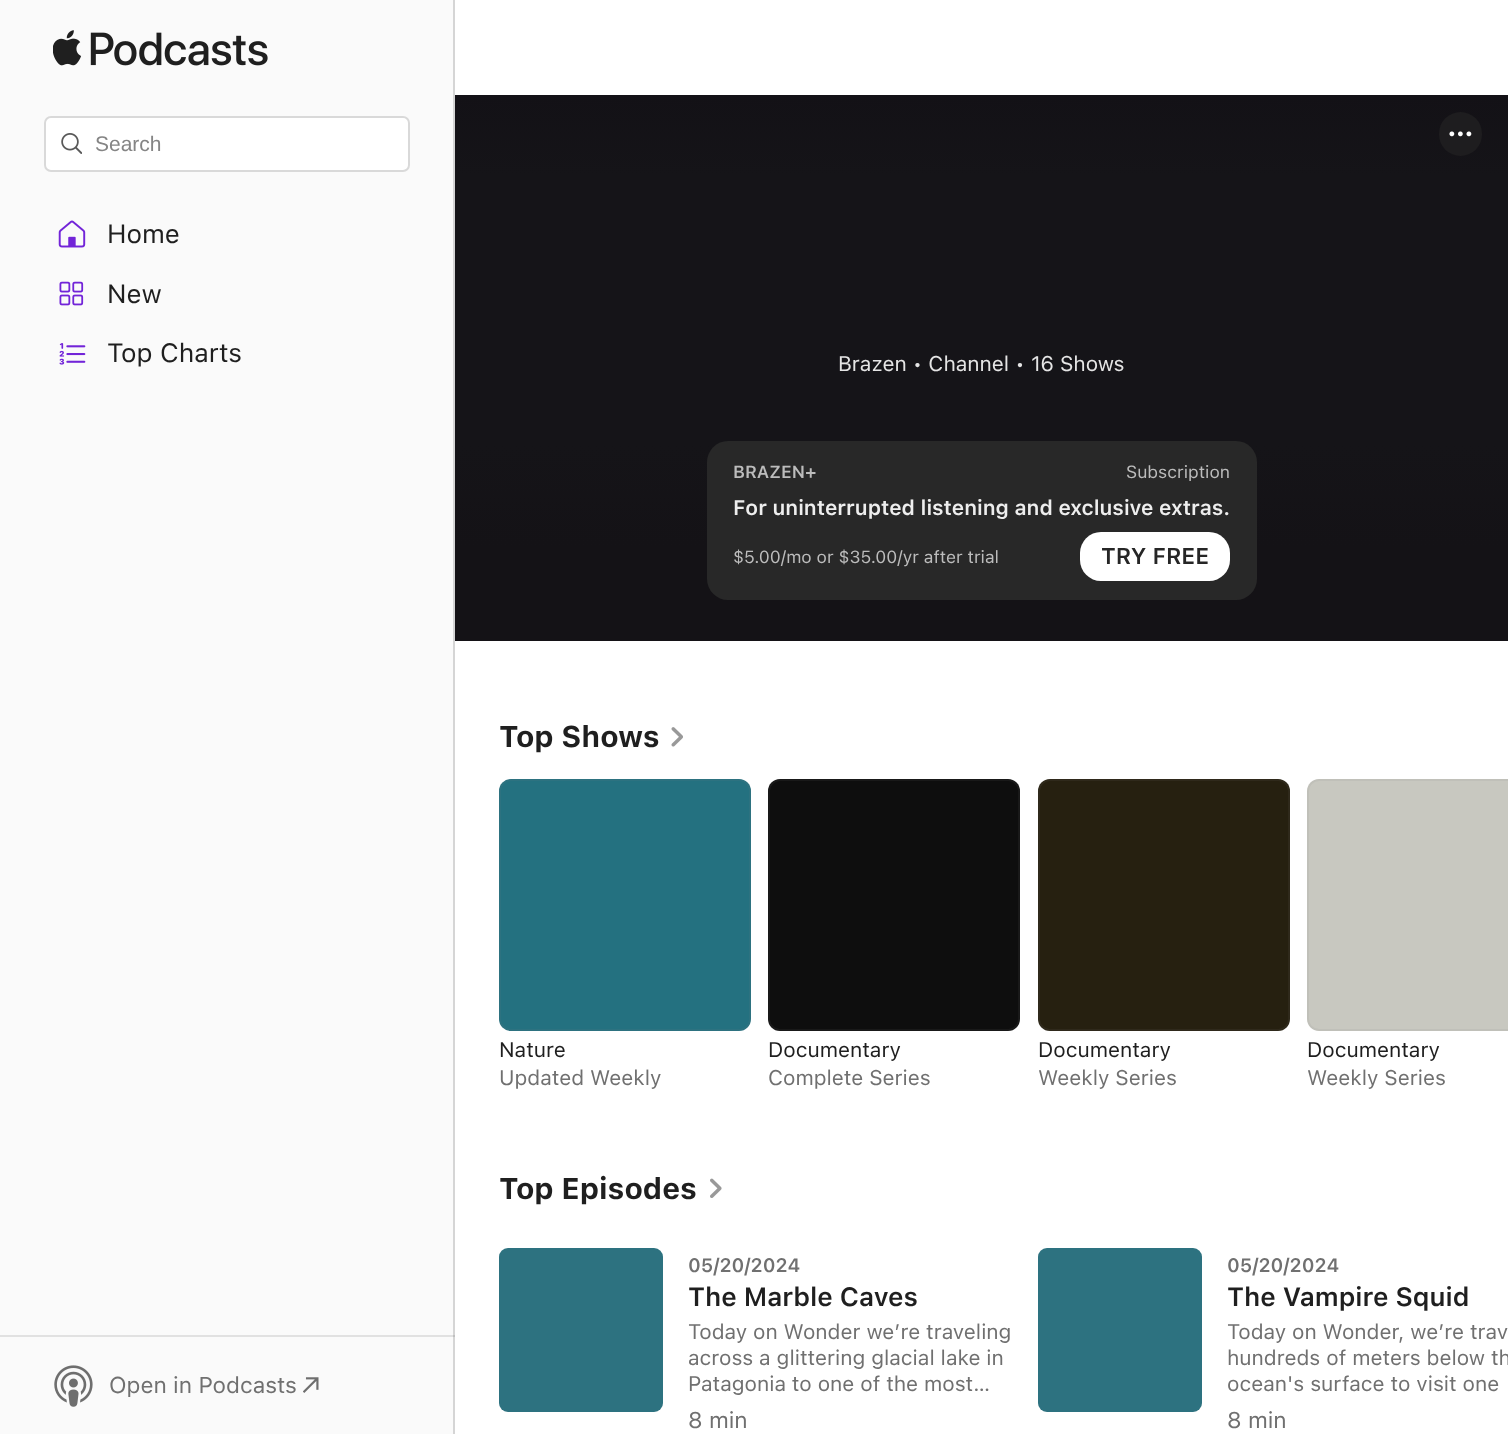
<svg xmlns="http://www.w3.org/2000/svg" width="1508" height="1434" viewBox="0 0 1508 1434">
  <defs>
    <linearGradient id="g1" gradientUnits="userSpaceOnUse" x1="982" y1="94" x2="982" y2="641"><stop offset="0" stop-color="rgb(19,17,22)"/><stop offset="0.15" stop-color="rgb(21,20,24)"/><stop offset="0.64" stop-color="rgb(21,20,24)"/><stop offset="0.83" stop-color="rgb(20,18,22)"/><stop offset="1" stop-color="rgb(20,18,22)"/></linearGradient>
  </defs>
  <rect width="100%" height="100%" fill="rgb(255,255,255)"/>
  <rect x="0" y="0" width="453" height="1434" fill="rgb(250,250,250)"/>
  <rect x="0" y="1335" width="455" height="2" fill="rgb(225,225,225)"/>
  <rect x="453" y="0" width="2" height="1434" fill="rgb(213,213,213)"/>
  <rect x="453" y="1335" width="2" height="2" fill="rgb(192,192,192)"/>
  <image x="53" y="30" width="215" height="36" href="pic1.png"/>
  <rect x="45" y="117" width="364" height="54" rx="6" fill="rgb(255,255,255)" stroke="rgb(217,217,217)" stroke-width="2"/>
  <image x="61" y="133" width="21" height="21" href="pic2.png"/>
  <text x="95" y="151" font-family="Liberation Sans" font-size="21" fill="rgb(133,133,133)">Search</text>
  <image x="58" y="220" width="28" height="28" href="pic3.png"/>
  <text x="107" y="243" font-family="SF" font-size="26.25" fill="rgb(31,31,31)">Home</text>
  <image x="59" y="281" width="25" height="25" href="pic4.png"/>
  <text x="107" y="303" font-family="SF" font-size="26.25" fill="rgb(31,31,31)">New</text>
  <image x="59" y="343" width="27" height="22" href="pic5.png"/>
  <text x="107" y="362" font-family="SF" font-size="26.25" fill="rgb(31,31,31)">Top Charts</text>
  <image x="54" y="1365" width="39" height="42" href="pic6.png"/>
  <text x="109" y="1393" font-family="SF" font-size="22.75" fill="rgb(112,112,112)">Open in Podcasts</text>
  <image x="303" y="1377" width="16" height="16" href="pic7.png"/>
  <rect x="455" y="95" width="1053" height="546" fill="url(#g1)"/>
  <rect x="1439" y="112" width="43" height="44" rx="21.5" fill="rgb(30,29,31)"/>
  <image x="1449" y="131" width="23" height="6" href="pic8.png"/>
  <text x="838" y="371" font-family="SF" font-size="21" fill="rgb(229,229,229)">Brazen • Channel • 16 Shows</text>
  <rect x="707" y="441" width="550" height="159" rx="21" fill="rgb(40,40,40)"/>
  <text x="733" y="478" font-family="SF" font-size="17.5" font-weight="600" fill="rgb(188,188,188)">BRAZEN+</text>
  <text x="1126" y="478" font-family="SF" font-size="17.5" fill="rgb(188,188,188)">Subscription</text>
  <text x="733" y="515" font-family="SF" font-size="21" font-weight="600" fill="rgb(238,238,238)">For uninterrupted listening and exclusive extras.</text>
  <text x="733" y="563" font-family="SF" font-size="17.5" fill="rgb(188,188,188)">$5.00/mo or $35.00/yr after trial</text>
  <rect x="1080" y="532" width="150" height="49" rx="21" fill="rgb(255,255,255)"/>
  <text x="1101" y="564" font-family="SF" font-size="22.75" font-weight="600" fill="rgb(38,38,38)">TRY FREE</text>
  <text x="499" y="747" font-family="SF" font-size="29.75" font-weight="bold" fill="rgb(31,31,31)">Top Shows</text>
  <image x="671" y="727" width="12" height="20" href="pic9.png"/>
  <rect x="499" y="779" width="252" height="252" rx="12" fill="rgb(36,113,128)"/>
  <rect x="500" y="780" width="250" height="250" rx="11" fill="none" stroke="rgba(128,128,128,0.1)" stroke-width="2"/>
  <text x="499" y="1057" font-family="SF" font-size="21" fill="rgb(31,31,31)">Nature</text>
  <text x="499" y="1085" font-family="SF" font-size="21" fill="rgb(112,112,112)">Updated Weekly</text>
  <rect x="768" y="779" width="252" height="252" rx="12" fill="rgb(14,14,14)"/>
  <rect x="769" y="780" width="250" height="250" rx="11" fill="none" stroke="rgba(128,128,128,0.1)" stroke-width="2"/>
  <text x="768" y="1057" font-family="SF" font-size="21" fill="rgb(31,31,31)">Documentary</text>
  <text x="768" y="1085" font-family="SF" font-size="21" fill="rgb(112,112,112)">Complete Series</text>
  <rect x="1038" y="779" width="252" height="252" rx="12" fill="rgb(38,32,16)"/>
  <rect x="1039" y="780" width="250" height="250" rx="11" fill="none" stroke="rgba(128,128,128,0.1)" stroke-width="2"/>
  <text x="1038" y="1057" font-family="SF" font-size="21" fill="rgb(31,31,31)">Documentary</text>
  <text x="1038" y="1085" font-family="SF" font-size="21" fill="rgb(112,112,112)">Weekly Series</text>
  <path d="M1319 779H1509V1031H1319C1312.5 1031 1307 1025.5 1307 1019V791C1307 784.5 1312.5 779 1319 779Z" fill="rgb(200,200,192)"/>
  <rect x="1308" y="780" width="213" height="250" rx="11" fill="none" stroke="rgba(128,128,128,0.1)" stroke-width="2"/>
  <text x="1307" y="1057" font-family="SF" font-size="21" fill="rgb(31,31,31)">Documentary</text>
  <text x="1307" y="1085" font-family="SF" font-size="21" fill="rgb(112,112,112)">Weekly Series</text>
  <text x="499" y="1199" font-family="SF" font-size="29.75" font-weight="bold" fill="rgb(31,31,31)">Top Episodes</text>
  <image x="710" y="1178" width="12" height="20" href="pic10.png"/>
  <rect x="499" y="1248" width="164" height="164" rx="9" fill="rgb(36,113,128)"/>
  <path d="M508 1248H654C659 1248 663 1252 663 1257V1403C663 1408 659 1412 654 1412H508C503 1412 499 1408 499 1403V1257C499 1252 503 1248 508 1248Z" fill="rgba(128,128,128,0.1)"/>
  <text x="688" y="1272" font-family="SF" font-size="19.25" font-weight="600" fill="rgb(112,112,112)">05/20/2024</text>
  <text x="688" y="1306" font-family="SF" font-size="26.25" font-weight="600" fill="rgb(31,31,31)">The Marble Caves</text>
  <g font-family="SF" font-size="21" fill="rgb(112,112,112)">
    <text>
      <tspan x="688" y="1339">Today on Wonder we’re traveling</tspan>
      <tspan x="688" y="1365">across a glittering glacial lake in</tspan>
      <tspan x="688" y="1391">Patagonia to one of the most…</tspan>
    </text>
  </g>
  <text x="688" y="1428" font-family="SF" font-size="22.75" fill="rgb(112,112,112)">8 min</text>
  <rect x="1038" y="1248" width="164" height="164" rx="9" fill="rgb(36,113,128)"/>
  <path d="M1047 1248H1193C1198 1248 1202 1252 1202 1257V1403C1202 1408 1198 1412 1193 1412H1047C1042 1412 1038 1408 1038 1403V1257C1038 1252 1042 1248 1047 1248Z" fill="rgba(128,128,128,0.1)"/>
  <text x="1227" y="1272" font-family="SF" font-size="19.25" font-weight="600" fill="rgb(112,112,112)">05/20/2024</text>
  <text x="1227" y="1306" font-family="SF" font-size="26.25" font-weight="600" fill="rgb(31,31,31)">The Vampire Squid</text>
  <g font-family="SF" font-size="21" fill="rgb(112,112,112)">
    <text>
      <tspan x="1227" y="1339">Today on Wonder, we’re trav</tspan>
      <tspan x="1227" y="1365">hundreds of meters below th</tspan>
      <tspan x="1227" y="1391">ocean's surface to visit one</tspan>
    </text>
  </g>
  <text x="1227" y="1428" font-family="SF" font-size="22.75" fill="rgb(112,112,112)">8 min</text>
</svg>
